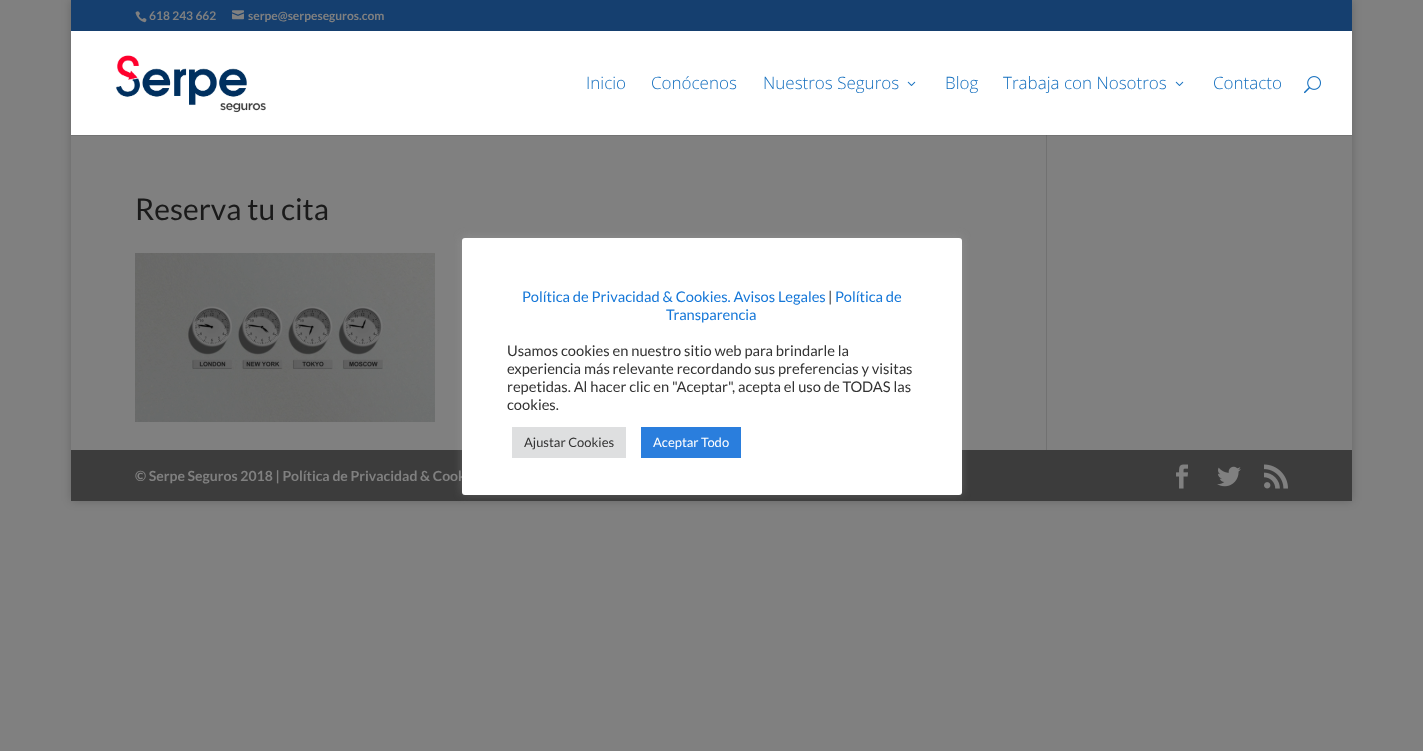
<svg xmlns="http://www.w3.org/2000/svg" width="1423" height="751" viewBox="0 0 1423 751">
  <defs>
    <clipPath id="clip1"><path d="M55 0H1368V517H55ZM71 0H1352V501H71Z" clip-rule="evenodd"/></clipPath>
  </defs>
  <rect width="100%" height="100%" fill="rgb(128,128,128)"/>
  <rect x="71" y="135" width="1281" height="1" fill="rgb(115,115,115)"/>
  <g clip-path="url(#clip1)">
    <rect x="71" y="0" width="1281" height="501" fill="rgba(0,0,0,0.2)" filter="blur(5px)"/>
  </g>
  <rect x="71" y="0" width="1281" height="31" fill="rgb(21,63,111)"/>
  <image x="135" y="11" width="12" height="12" href="pic1.png"/>
  <text x="149" y="20" font-family="Lato" font-size="12" font-weight="bold" fill="rgb(128,128,128)">618 243 662</text>
  <image x="232" y="10" width="12" height="10" href="pic2.png"/>
  <text x="248" y="20" font-family="Lato" font-size="12" font-weight="bold" fill="rgb(128,128,128)">serpe@serpeseguros.com</text>
  <rect x="71" y="31" width="1281" height="104" fill="rgb(255,255,255)"/>
  <image x="115" y="55" width="151" height="58" href="pic3.png"/>
  <g font-family="Open Sans" font-size="17" font-weight="300" fill="rgb(22,112,191)">
    <text x="586" y="89">Inicio</text>
    <text x="651" y="89">Conócenos</text>
    <text x="763" y="89">Nuestros Seguros</text>
  </g>
  <image x="907" y="81" width="9" height="5" href="pic4.png"/>
  <g font-family="Open Sans" font-size="17" font-weight="300" fill="rgb(22,112,191)">
    <text x="945" y="89">Blog</text>
    <text x="1003" y="89">Trabaja con Nosotros</text>
  </g>
  <image x="1175" y="81" width="9" height="5" href="pic4.png"/>
  <text x="1213" y="89" font-family="Open Sans" font-size="17" font-weight="300" fill="rgb(22,112,191)">Contacto</text>
  <image x="1304" y="76" width="17" height="18" href="pic5.png"/>
  <text x="135" y="220" font-family="Lato" font-size="30" fill="rgb(26,26,26)">Reserva tu cita</text>
  <image x="135" y="253" width="300" height="169" href="pic6.png"/>
  <rect x="1046" y="135" width="1" height="315" fill="rgb(113,113,113)"/>
  <rect x="1046" y="135" width="1" height="1" fill="rgb(102,102,102)"/>
  <rect x="71" y="450" width="1281" height="51" fill="rgb(60,60,60)"/>
  <text x="135" y="481" font-family="Lato" font-size="14" font-weight="bold" fill="rgb(128,128,128)">© Serpe Seguros 2018 | Política de Privacidad &amp; Cook</text>
  <image x="1176" y="464" width="12" height="25" href="pic7.png"/>
  <image x="1217" y="466" width="24" height="21" href="pic8.png"/>
  <image x="1264" y="464" width="24" height="25" href="pic9.png"/>
  <rect x="462" y="237" width="500" height="257" rx="3" fill="rgba(172,171,171,0.3)" filter="blur(5px)"/>
  <rect x="462" y="238" width="500" height="257" rx="3" fill="rgb(255,255,255)"/>
  <text x="522" y="302" font-family="Lato" font-size="14.7" fill="rgb(21,119,216)">Política de Privacidad &amp; Cookies. Avisos Legales</text>
  <text x="828" y="302" font-family="Lato" font-size="14.7" fill="rgb(51,51,51)">|</text>
  <g font-family="Lato" font-size="14.7" fill="rgb(21,119,216)">
    <text x="835" y="302">Política de</text>
    <text x="666" y="320">Transparencia</text>
  </g>
  <g font-family="Lato" font-size="14.7" fill="rgb(51,51,51)">
    <text>
      <tspan x="507" y="356">Usamos cookies en nuestro sitio web para brindarle la</tspan>
      <tspan x="507" y="374">experiencia más relevante recordando sus preferencias y visitas</tspan>
      <tspan x="507" y="392">repetidas. Al hacer clic en "Aceptar", acepta el uso de TODAS las</tspan>
      <tspan x="507" y="410">cookies.</tspan>
    </text>
  </g>
  <rect x="512" y="427" width="114" height="31" fill="rgb(222,223,224)"/>
  <text x="524" y="447" font-family="Lato" font-size="13" fill="rgb(51,51,51)">Ajustar Cookies</text>
  <rect x="641" y="427" width="100" height="31" fill="rgb(42,126,221)"/>
  <text x="653" y="447" font-family="Lato" font-size="13" fill="rgb(255,255,255)">Aceptar Todo</text>
</svg>
